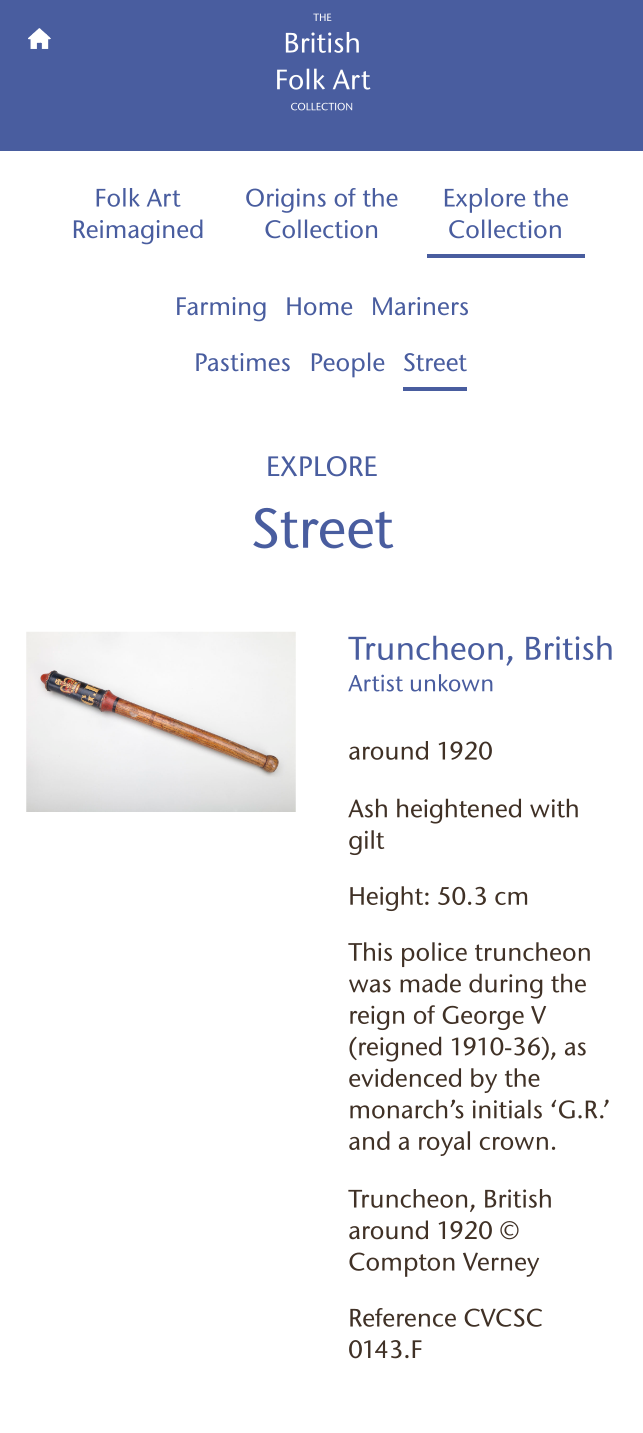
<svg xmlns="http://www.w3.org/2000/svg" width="643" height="1433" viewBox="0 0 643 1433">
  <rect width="100%" height="100%" fill="rgb(255,255,255)"/>
  <rect x="0" y="0" width="643" height="151" fill="rgb(73,93,159)"/>
  <image x="28" y="28" width="23" height="21" href="pic1.png"/>
  <image x="313" y="13" width="19" height="8" href="pic2.png"/>
  <image x="285" y="31" width="74" height="22" href="pic3.png"/>
  <image x="277" y="68" width="94" height="22" href="pic4.png"/>
  <image x="291" y="102" width="62" height="9" href="pic5.png"/>
  <image x="96" y="188" width="85" height="19" href="pic6.png"/>
  <image x="73" y="219" width="130" height="26" href="pic7.png"/>
  <image x="246" y="188" width="152" height="25" href="pic8.png"/>
  <image x="265" y="219" width="113" height="20" href="pic9.png"/>
  <rect x="427" y="254" width="158" height="4" fill="rgb(73,93,159)"/>
  <image x="444" y="188" width="124" height="25" href="pic10.png"/>
  <image x="449" y="219" width="112" height="20" href="pic11.png"/>
  <image x="177" y="297" width="89" height="25" href="pic12.png"/>
  <image x="287" y="297" width="66" height="19" href="pic13.png"/>
  <image x="373" y="297" width="95" height="19" href="pic14.png"/>
  <image x="196" y="353" width="94" height="19" href="pic15.png"/>
  <image x="311" y="352" width="74" height="26" href="pic16.png"/>
  <rect x="403" y="387" width="64" height="4" fill="rgb(73,93,159)"/>
  <image x="403" y="353" width="64" height="19" href="pic17.png"/>
  <image x="268" y="456" width="109" height="21" href="pic18.png"/>
  <image x="253" y="507" width="141" height="42" href="pic19.png"/>
  <image x="26" y="631" width="270" height="181" href="pic20.png"/>
  <image x="348" y="635" width="264" height="31" href="pic21.png"/>
  <image x="348" y="674" width="145" height="18" href="pic22.png"/>
  <image x="349" y="741" width="143" height="19" href="pic23.png"/>
  <image x="348" y="798" width="230" height="26" href="pic24.png"/>
  <image x="349" y="830" width="36" height="26" href="pic25.png"/>
  <image x="350" y="886" width="178" height="26" href="pic26.png"/>
  <image x="348" y="942" width="242" height="26" href="pic27.png"/>
  <image x="349" y="973" width="237" height="26" href="pic28.png"/>
  <image x="350" y="1005" width="197" height="26" href="pic29.png"/>
  <image x="349" y="1036" width="237" height="26" href="pic30.png"/>
  <image x="349" y="1068" width="191" height="26" href="pic31.png"/>
  <image x="350" y="1099" width="259" height="20" href="pic32.png"/>
  <image x="349" y="1131" width="207" height="26" href="pic33.png"/>
  <image x="348" y="1189" width="203" height="24" href="pic34.png"/>
  <image x="349" y="1220" width="170" height="20" href="pic35.png"/>
  <image x="349" y="1252" width="191" height="25" href="pic36.png"/>
  <image x="350" y="1308" width="192" height="19" href="pic37.png"/>
  <image x="349" y="1340" width="73" height="19" href="pic38.png"/>
</svg>
